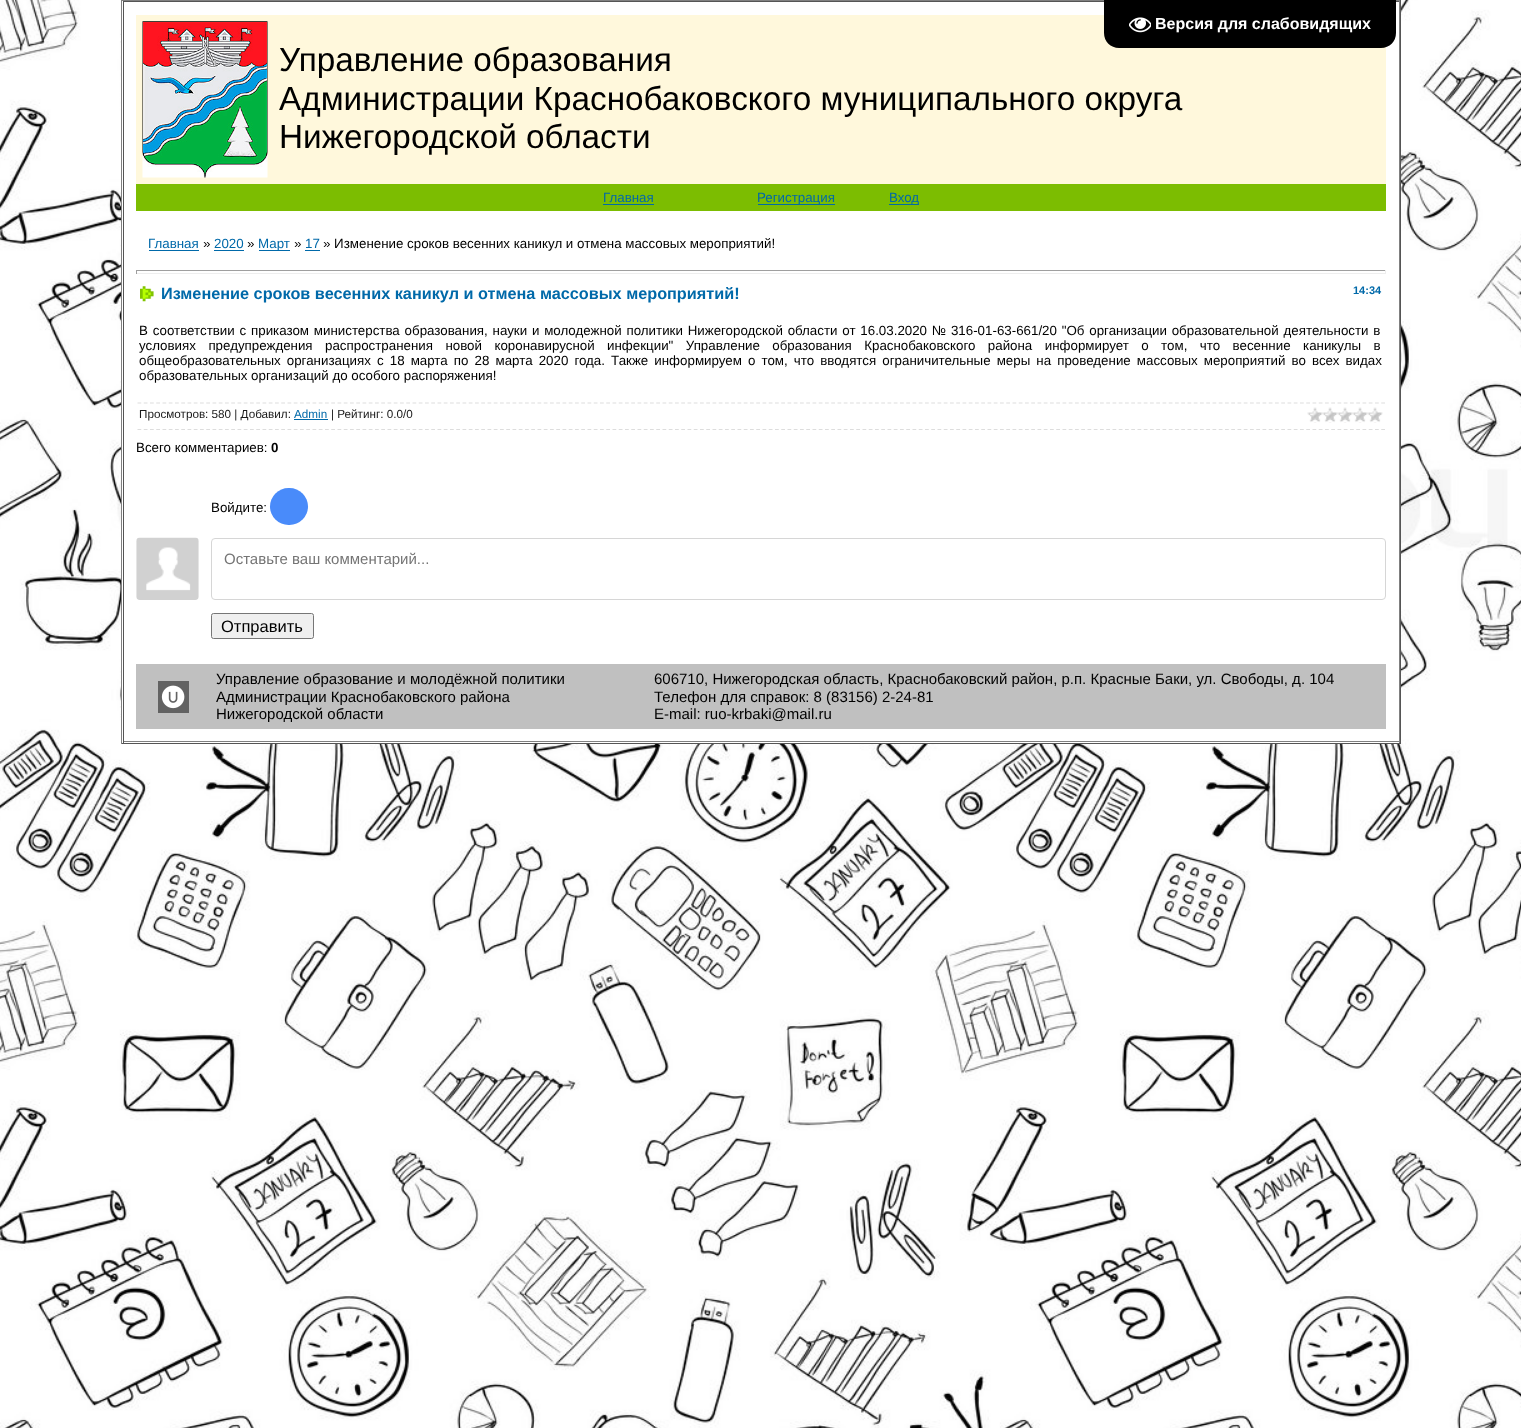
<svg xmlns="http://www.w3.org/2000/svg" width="1521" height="1428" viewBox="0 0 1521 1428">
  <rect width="100%" height="100%" fill="rgb(255,255,255)"/>
  <image x="0" y="0" width="1521" height="1428" href="pic1.png"/>
  <rect x="122" y="1" width="1277" height="742" fill="rgb(255,255,255)"/>
  <rect x="121" y="0" width="1280" height="1" fill="rgb(128,128,128)"/>
  <rect x="123" y="1" width="1277" height="1" fill="rgb(85,85,85)"/>
  <rect x="136" y="15" width="1250" height="169" fill="rgb(255,248,220)"/>
  <path d="M1104 0H1396V33C1396 41.5 1389.5 48 1381 48H1119C1110.5 48 1104 41.5 1104 33Z" fill="rgb(0,0,0)"/>
  <image x="1129" y="17" width="22" height="16" href="pic2.png"/>
  <text x="1155" y="29" font-family="Liberation Sans" font-size="16" font-weight="bold" fill="rgb(255,255,255)">Версия для слабовидящих</text>
  <rect x="1400" y="0" width="1" height="744" fill="rgb(85,85,85)"/>
  <rect x="121" y="743" width="1280" height="1" fill="rgb(85,85,85)"/>
  <rect x="121" y="0" width="1" height="744" fill="rgb(128,128,128)"/>
  <rect x="1399" y="1" width="1" height="742" fill="rgb(128,128,128)"/>
  <rect x="123" y="741" width="1277" height="1" fill="rgb(128,128,128)"/>
  <rect x="123" y="1" width="1" height="742" fill="rgb(85,85,85)"/>
  <image x="142" y="21" width="126" height="157" href="pic3.png"/>
  <g font-family="Liberation Sans" font-size="33.3" fill="rgb(0,0,0)">
    <text>
      <tspan x="279" y="71">Управление образования</tspan>
      <tspan x="279" y="110">Администрации Краснобаковского муниципального округа</tspan>
      <tspan x="279" y="148">Нижегородской области</tspan>
    </text>
  </g>
  <rect x="136" y="184" width="1250" height="27" fill="rgb(124,189,1)"/>
  <text x="603" y="202" font-family="Liberation Sans" font-size="13.33" fill="rgb(0,105,169)">Главная</text>
  <rect x="603" y="204" width="51" height="1" fill="rgb(0,105,169)"/>
  <rect x="758" y="204" width="77" height="1" fill="rgb(0,105,169)"/>
  <text x="757" y="202" font-family="Liberation Sans" font-size="13.33" fill="rgb(0,105,169)">Регистрация</text>
  <rect x="889" y="204" width="30" height="1" fill="rgb(0,105,169)"/>
  <g font-family="Liberation Sans" font-size="13.33" fill="rgb(0,105,169)">
    <text x="889" y="202">Вход</text>
    <text x="148" y="248">Главная</text>
  </g>
  <rect x="149" y="250" width="50" height="1" fill="rgb(0,105,169)"/>
  <text x="203" y="248" font-family="Liberation Sans" font-size="13.33" fill="rgb(0,0,0)">»</text>
  <text x="214" y="248" font-family="Liberation Sans" font-size="13.33" fill="rgb(0,105,169)">2020</text>
  <rect x="214" y="250" width="30" height="1" fill="rgb(0,105,169)"/>
  <text x="247" y="248" font-family="Liberation Sans" font-size="13.33" fill="rgb(0,0,0)">»</text>
  <rect x="259" y="250" width="31" height="1" fill="rgb(0,105,169)"/>
  <text x="258" y="248" font-family="Liberation Sans" font-size="13.33" fill="rgb(0,105,169)">Март</text>
  <text x="294" y="248" font-family="Liberation Sans" font-size="13.33" fill="rgb(0,0,0)">»</text>
  <text x="305" y="248" font-family="Liberation Sans" font-size="13.33" fill="rgb(0,105,169)">17</text>
  <rect x="305" y="250" width="15" height="1" fill="rgb(0,105,169)"/>
  <text x="323" y="248" font-family="Liberation Sans" font-size="13.33" fill="rgb(0,0,0)">» Изменение сроков весенних каникул и отмена массовых мероприятий!</text>
  <rect x="136" y="270" width="1250" height="1" fill="rgb(159,159,159)"/>
  <rect x="1385" y="270" width="1" height="4" fill="rgb(238,238,238)"/>
  <rect x="136" y="273" width="1250" height="1" fill="rgb(238,238,238)"/>
  <rect x="136" y="270" width="1" height="4" fill="rgb(159,159,159)"/>
  <image x="140" y="286" width="14" height="16" href="pic4.png"/>
  <text x="161" y="299" font-family="Liberation Sans" font-size="16.25" font-weight="bold" fill="rgb(0,105,169)">Изменение сроков весенних каникул и отмена массовых мероприятий!</text>
  <text x="1353" y="294" font-family="Liberation Sans" font-size="11" font-weight="bold" fill="rgb(0,105,169)">14:34</text>
  <g font-family="Liberation Sans" font-size="13.33" fill="rgb(0,0,0)">
    <text>
      <tspan x="139" y="335" word-spacing="1.1">В соответствии с приказом министерства образования, науки и молодежной политики Нижегородской области от 16.03.2020 № 316-01-63-661/20 "Об организации образовательной деятельности в</tspan>
      <tspan x="139" y="350" word-spacing="8.75">условиях предупреждения распространения новой коронавирусной инфекции" Управление образования Краснобаковского района информирует о том, что весенние каникулы в</tspan>
      <tspan x="139" y="365" word-spacing="2.4">общеобразовательных организациях с 18 марта по 28 марта 2020 года. Также информируем о том, что вводятся ограничительные меры на проведение массовых мероприятий во всех видах</tspan>
      <tspan x="139" y="380">образовательных организаций до особого распоряжения!</tspan>
    </text>
  </g>
  <path d="M137.5 403H1385" fill="none" stroke="rgb(221,221,221)" stroke-width="1.2" stroke-dasharray="3.75 2.5"/>
  <path d="M137.5 429.5H1385" fill="none" stroke="rgb(221,221,221)" stroke-width="1.2" stroke-dasharray="3.75 2.5"/>
  <text x="139" y="418" font-family="Liberation Sans" font-size="11.7" fill="rgb(26,26,26)">Просмотров: 580 | Добавил:</text>
  <text x="294" y="418" font-family="Liberation Sans" font-size="11.7" fill="rgb(0,105,169)">Admin</text>
  <rect x="294" y="419" width="34" height="1" fill="rgb(0,105,169)"/>
  <text x="331" y="418" font-family="Liberation Sans" font-size="11.7" fill="rgb(26,26,26)">| Рейтинг: 0.0/0</text>
  <image x="1307" y="407" width="76" height="16" href="pic5.png"/>
  <text x="136" y="452" font-family="Liberation Sans" font-size="13.33" fill="rgb(0,0,0)">Всего комментариев:</text>
  <text x="271" y="452" font-family="Liberation Sans" font-size="13.33" font-weight="bold" fill="rgb(0,0,0)">0</text>
  <text x="211" y="512" font-family="Liberation Sans" font-size="13.33" fill="rgb(0,0,0)">Войдите:</text>
  <rect x="270" y="488" width="38" height="37" rx="18.5" fill="rgb(73,139,250)"/>
  <image x="136" y="537" width="63" height="63" href="pic6.png"/>
  <rect x="211.5" y="538.5" width="1174" height="61" rx="3.5" fill="none" stroke="rgb(214,214,214)"/>
  <text x="224" y="564" font-family="Liberation Sans" font-size="15" fill="rgb(117,117,117)">Оставьте ваш комментарий...</text>
  <rect x="211.5" y="613.5" width="102" height="25" rx="2" fill="rgb(239,239,239)" stroke="rgb(118,118,118)"/>
  <text x="221" y="632" font-family="Liberation Sans" font-size="16.5" fill="rgb(0,0,0)">Отправить</text>
  <rect x="136" y="664" width="1250" height="65" fill="rgb(192,192,192)"/>
  <image x="158" y="681" width="31" height="32" href="pic7.png"/>
  <g font-family="Liberation Sans" font-size="15" fill="rgb(0,0,0)">
    <text>
      <tspan x="216" y="684">Управление образование и молодёжной политики</tspan>
      <tspan x="216" y="702">Администрации Краснобаковского района</tspan>
      <tspan x="216" y="719">Нижегородской области</tspan>
    </text>
    <text>
      <tspan x="654" y="684">606710, Нижегородская область, Краснобаковский район, р.п. Красные Баки, ул. Свободы, д. 104</tspan>
      <tspan x="654" y="702">Телефон для справок: 8 (83156) 2-24-81</tspan>
      <tspan x="654" y="719">E-mail: ruo-krbaki@mail.ru</tspan>
    </text>
  </g>
</svg>
